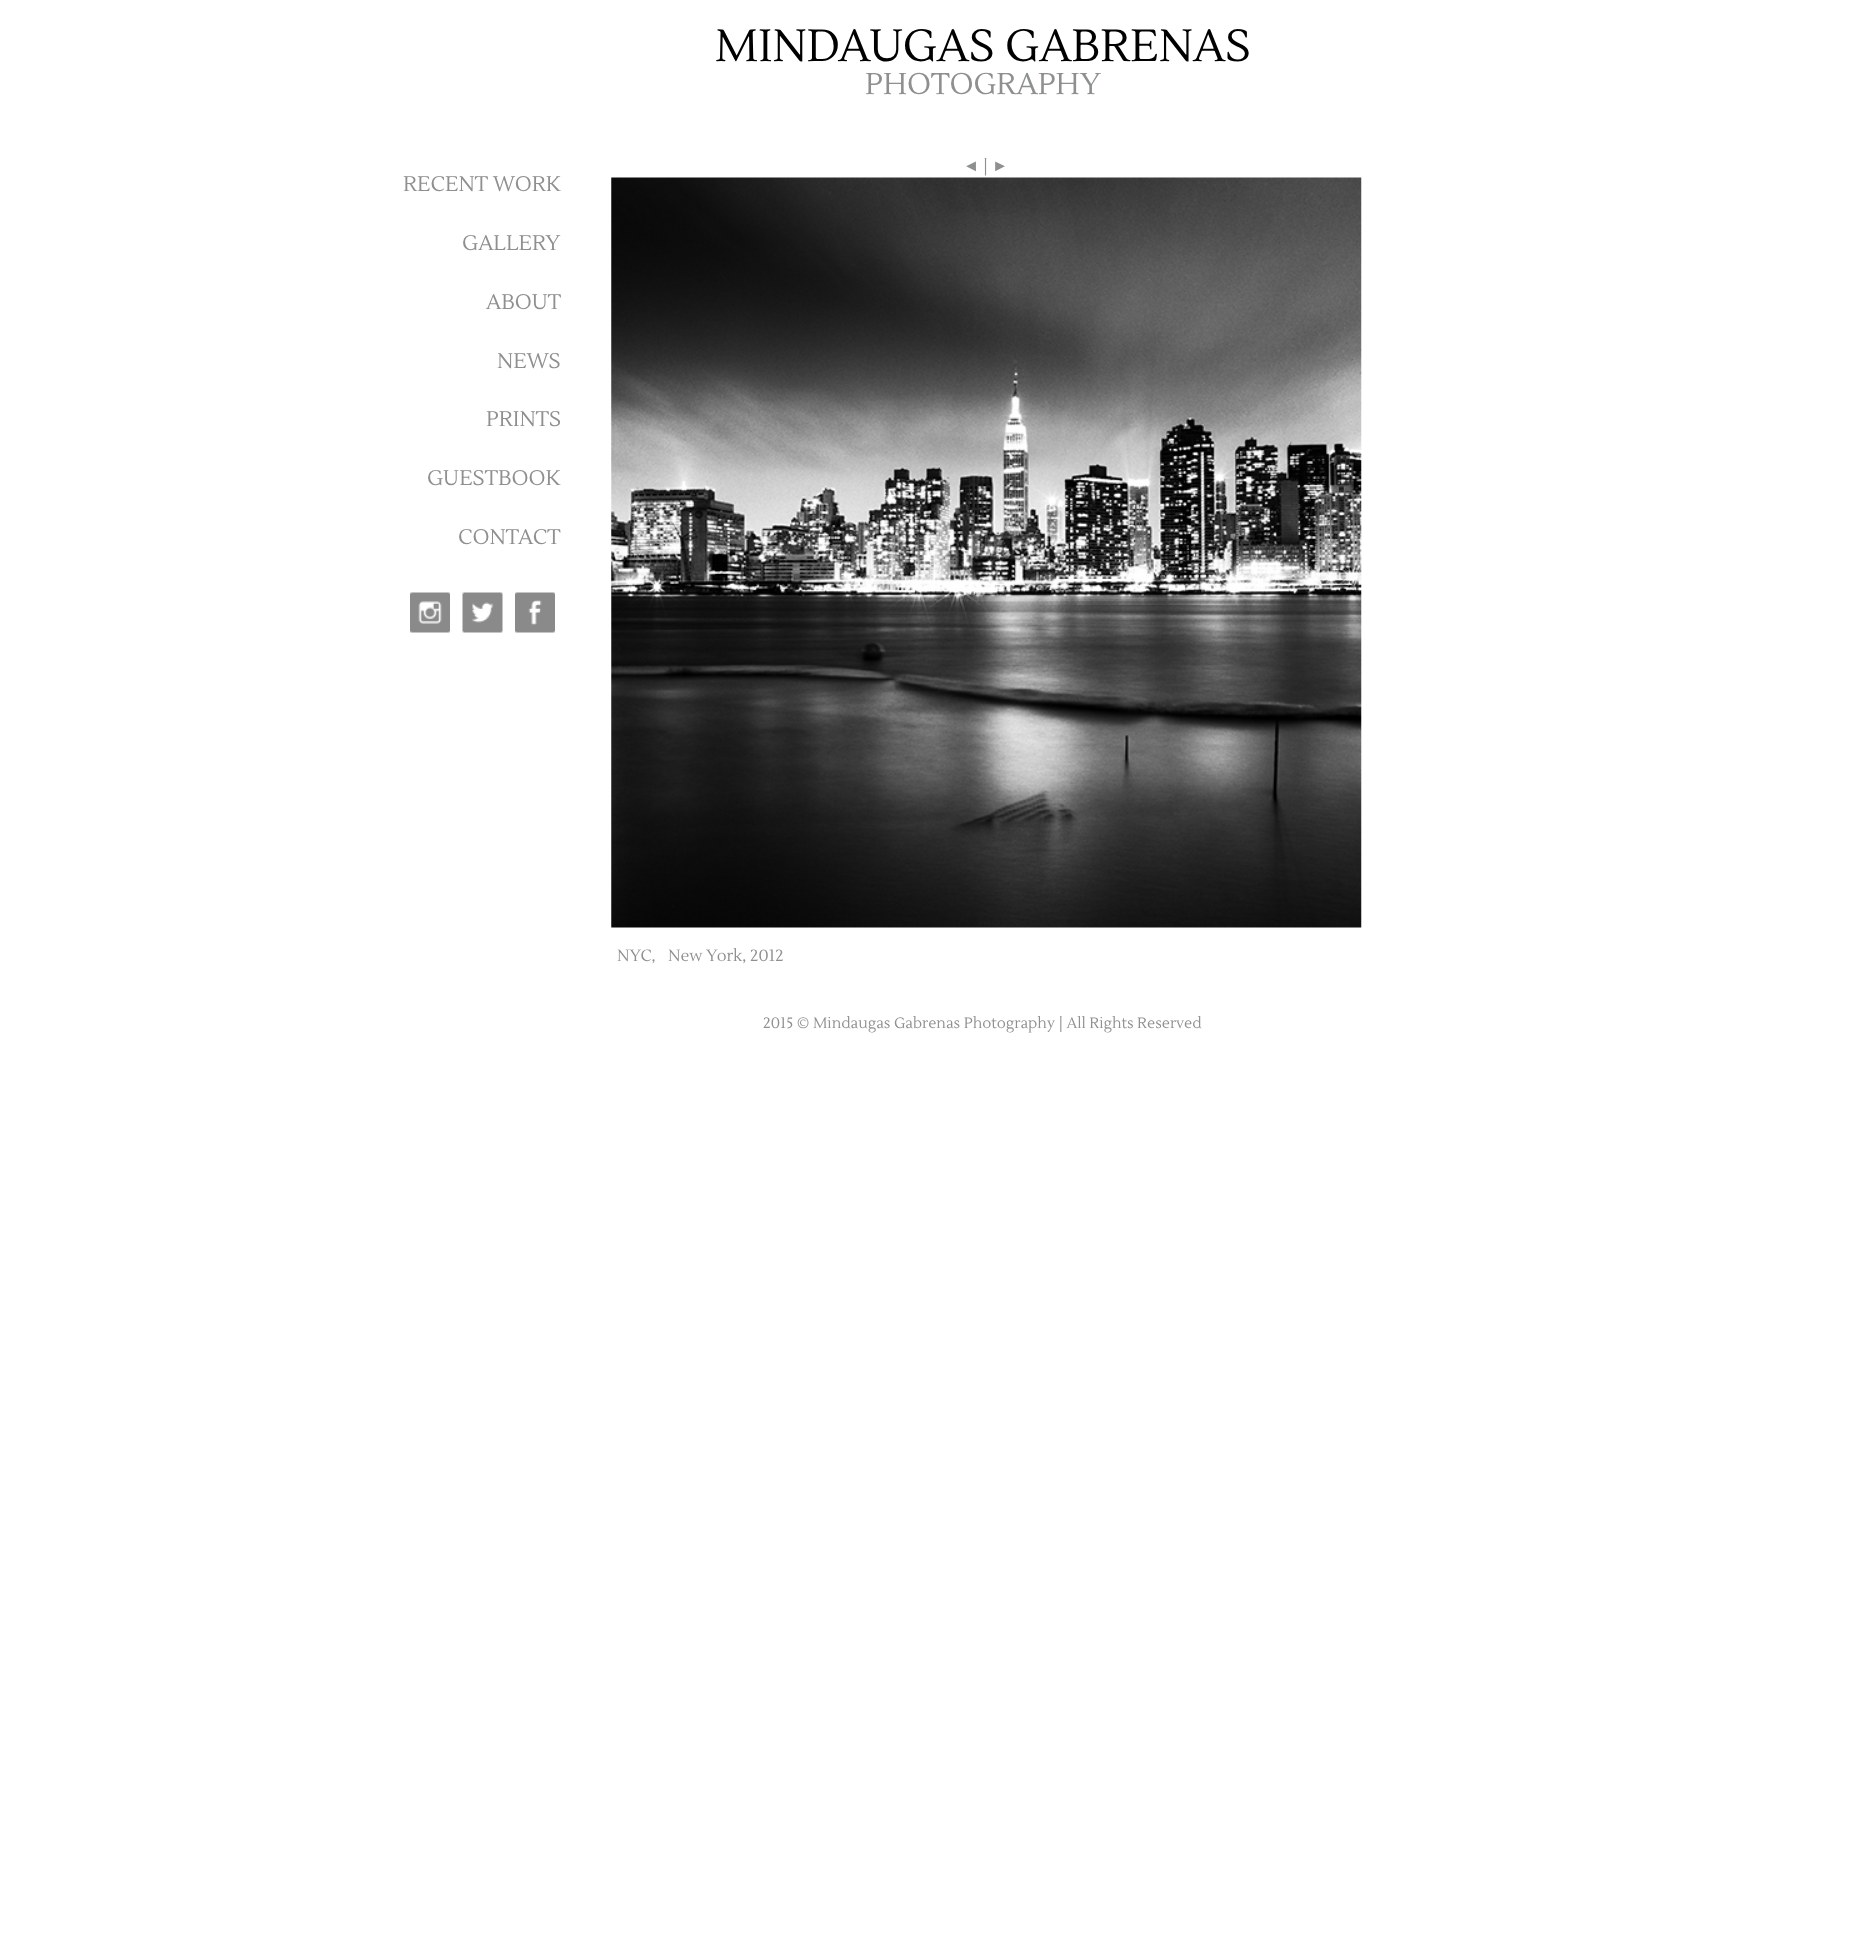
<svg xmlns="http://www.w3.org/2000/svg" width="1852" height="1942" viewBox="0 0 1852 1942">
  <rect width="100%" height="100%" fill="rgb(255,255,255)"/>
  <text x="715" y="61" font-family="Lustria" font-size="45" fill="rgb(0,0,0)">MINDAUGAS GABRENAS</text>
  <text x="865" y="94" font-family="Lustria" font-size="30" fill="rgb(142,144,143)">PHOTOGRAPHY</text>
  <g font-family="Lustria" font-size="21.25" fill="rgb(142,144,143)">
    <text x="403" y="191">RECENT WORK</text>
    <text x="462" y="250">GALLERY</text>
    <text x="486" y="309">ABOUT</text>
    <text x="497" y="368">NEWS</text>
    <text x="486" y="426">PRINTS</text>
    <text x="427" y="485">GUESTBOOK</text>
    <text x="458" y="544">CONTACT</text>
  </g>
  <image x="410" y="592" width="40" height="41" href="pic1.png"/>
  <image x="462" y="592" width="41" height="41" href="pic2.png"/>
  <image x="515" y="592" width="40" height="41" href="pic3.png"/>
  <text x="963" y="171" font-family="Liberation Serif" font-size="16.25" fill="rgb(142,144,143)">◄</text>
  <text x="983" y="171" font-family="Lustria" font-size="16.25" fill="rgb(142,144,143)">|</text>
  <text x="992" y="171" font-family="Liberation Serif" font-size="16.25" fill="rgb(142,144,143)">►</text>
  <image x="611" y="177" width="751" height="751" href="pic4.png"/>
  <g font-family="Lustria" font-size="16.25" fill="rgb(142,144,143)">
    <text x="617" y="961">NYC,</text>
    <text x="668" y="961">New York, 2012</text>
  </g>
  <text x="763" y="1028" font-family="Lustria" font-size="15" fill="rgb(142,144,143)">2015 © Mindaugas Gabrenas Photography | All Rights Reserved</text>
</svg>
